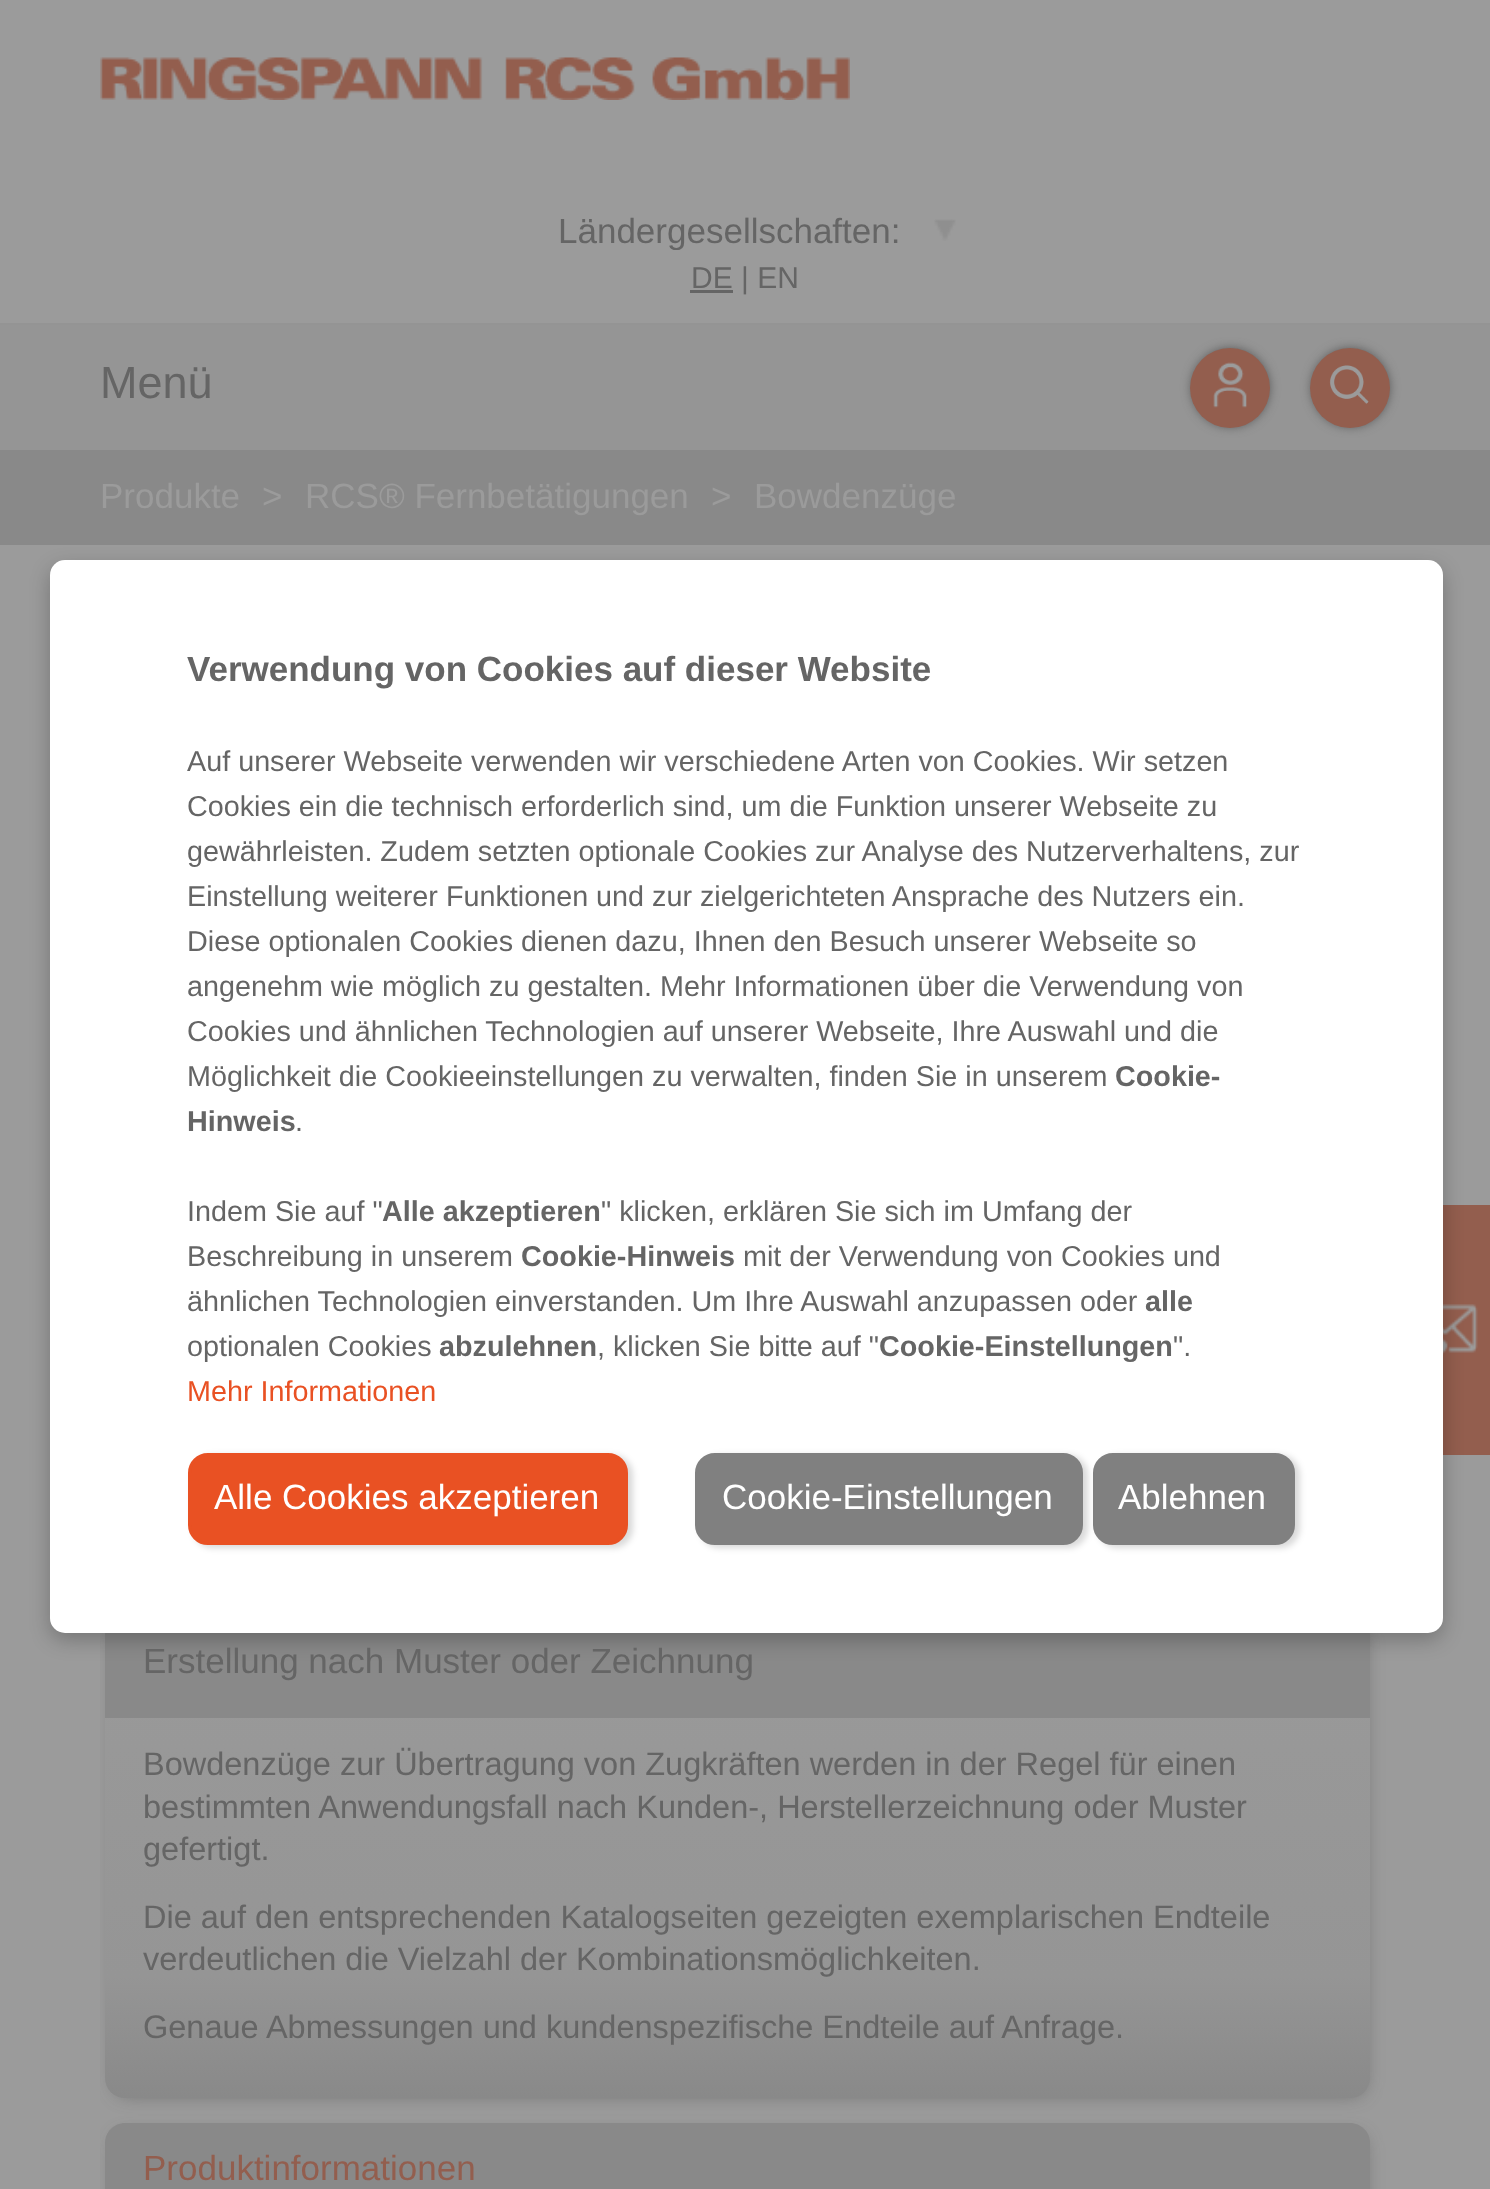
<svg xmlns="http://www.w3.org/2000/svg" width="1490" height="2189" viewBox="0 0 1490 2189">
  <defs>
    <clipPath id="clip1"><rect x="538" y="210" width="382" height="40"/></clipPath>
    <clipPath id="clip2"><rect x="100" y="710" width="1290" height="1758"/></clipPath>
    <linearGradient id="g1" gradientUnits="userSpaceOnUse" x1="738" y1="1519" x2="738" y2="2098"><stop offset="0" stop-color="rgb(155,155,155)"/><stop offset="0.79" stop-color="rgb(149,149,149)"/><stop offset="1" stop-color="rgb(137,137,137)"/></linearGradient>
  </defs>
  <rect width="100%" height="100%" fill="rgb(155,155,155)"/>
  <image x="100" y="57" width="750" height="43" href="pic1.png"/>
  <image x="934" y="219" width="22" height="22" href="pic2.png"/>
  <g clip-path="url(#clip1)">
    <text x="558" y="243" font-family="Liberation Sans" font-size="35" fill="rgb(101,101,101)">Ländergesellschaften:</text>
  </g>
  <rect x="690" y="290" width="43" height="3" fill="rgb(101,101,101)"/>
  <text x="691" y="288" font-family="Liberation Sans" font-size="30" fill="rgb(101,101,101)">DE | EN</text>
  <rect x="1443" y="1205" width="47" height="250" fill="rgb(147,94,78)"/>
  <image x="1443" y="1304" width="35" height="51" href="pic3.png"/>
  <rect x="0" y="323" width="1490" height="2" fill="rgb(148,148,148)"/>
  <rect x="0" y="325" width="1490" height="125" fill="rgb(149,149,149)"/>
  <text x="100" y="398" font-family="Liberation Sans" font-size="45" fill="rgb(101,101,101)">Menü</text>
  <rect x="1193" y="350" width="75" height="75" rx="37.5" fill="rgb(66,66,66)" filter="blur(6px)"/>
  <circle cx="1230" cy="388" r="40" fill="rgb(147,94,78)"/>
  <image x="1213" y="362" width="34" height="46" href="pic4.png"/>
  <rect x="1313" y="350" width="75" height="75" rx="37.5" fill="rgb(66,66,66)" filter="blur(6px)"/>
  <circle cx="1350" cy="388" r="40" fill="rgb(147,94,78)"/>
  <image x="1329" y="365" width="40" height="39" href="pic5.png"/>
  <rect x="0" y="450" width="1490" height="95" fill="rgb(137,137,137)"/>
  <g font-family="Liberation Sans" font-size="35" fill="rgb(155,155,155)">
    <text x="100" y="508">Produkte</text>
    <text x="262" y="508">&gt;</text>
    <text x="305" y="508">RCS® Fernbetätigungen</text>
    <text x="711" y="508">&gt;</text>
    <text x="754" y="508">Bowdenzüge</text>
  </g>
  <g clip-path="url(#clip2)">
    <rect x="115" y="1628" width="1250" height="467" rx="13" fill="rgba(66,66,66,0.5)" filter="blur(9px)"/>
  </g>
  <rect x="105" y="1615" width="1265" height="483" rx="20" fill="url(#g1)"/>
  <path d="M125 1615H1350C1361 1615 1370 1624 1370 1635V1718H105V1635C105 1624 114 1615 125 1615Z" fill="rgb(137,137,137)"/>
  <rect x="50" y="568" width="1393" height="1072" rx="15" fill="rgba(0,0,0,0.24)" filter="blur(10px)"/>
  <rect x="50" y="560" width="1393" height="1073" rx="15" fill="rgb(255,255,255)"/>
  <text x="187" y="681" font-family="Liberation Sans" font-size="35" font-weight="bold" fill="rgb(101,101,101)">Verwendung von Cookies auf dieser Website</text>
  <g font-family="Liberation Sans" font-size="28.75" fill="rgb(101,101,101)">
    <text>
      <tspan x="187" y="771">Auf unserer Webseite verwenden wir verschiedene Arten von Cookies. Wir setzen</tspan>
      <tspan x="187" y="816">Cookies ein die technisch erforderlich sind, um die Funktion unserer Webseite zu</tspan>
      <tspan x="187" y="861">gewährleisten. Zudem setzten optionale Cookies zur Analyse des Nutzerverhaltens, zur</tspan>
      <tspan x="187" y="906">Einstellung weiterer Funktionen und zur zielgerichteten Ansprache des Nutzers ein.</tspan>
      <tspan x="187" y="951">Diese optionalen Cookies dienen dazu, Ihnen den Besuch unserer Webseite so</tspan>
      <tspan x="187" y="996">angenehm wie möglich zu gestalten. Mehr Informationen über die Verwendung von</tspan>
      <tspan x="187" y="1041">Cookies und ähnlichen Technologien auf unserer Webseite, Ihre Auswahl und die</tspan>
      <tspan x="187" y="1086">Möglichkeit die Cookieeinstellungen zu verwalten, finden Sie in unserem</tspan>
    </text>
  </g>
  <g font-family="Liberation Sans" font-size="28.75" font-weight="bold" fill="rgb(101,101,101)">
    <text x="1115" y="1086">Cookie-</text>
    <text x="187" y="1131">Hinweis</text>
  </g>
  <g font-family="Liberation Sans" font-size="28.75" fill="rgb(101,101,101)">
    <text x="295" y="1131">.</text>
    <text x="187" y="1221">Indem Sie auf "</text>
  </g>
  <text x="382" y="1221" font-family="Liberation Sans" font-size="28.75" font-weight="bold" fill="rgb(101,101,101)">Alle akzeptieren</text>
  <g font-family="Liberation Sans" font-size="28.75" fill="rgb(101,101,101)">
    <text x="601" y="1221">" klicken, erklären Sie sich im Umfang der</text>
    <text x="187" y="1266">Beschreibung in unserem</text>
  </g>
  <text x="521" y="1266" font-family="Liberation Sans" font-size="28.75" font-weight="bold" fill="rgb(101,101,101)">Cookie-Hinweis</text>
  <g font-family="Liberation Sans" font-size="28.75" fill="rgb(101,101,101)">
    <text x="743" y="1266">mit der Verwendung von Cookies und</text>
    <text x="187" y="1311">ähnlichen Technologien einverstanden. Um Ihre Auswahl anzupassen oder</text>
  </g>
  <text x="1145" y="1311" font-family="Liberation Sans" font-size="28.75" font-weight="bold" fill="rgb(101,101,101)">alle</text>
  <text x="187" y="1356" font-family="Liberation Sans" font-size="28.75" fill="rgb(101,101,101)">optionalen Cookies</text>
  <text x="439" y="1356" font-family="Liberation Sans" font-size="28.75" font-weight="bold" fill="rgb(101,101,101)">abzulehnen</text>
  <text x="597" y="1356" font-family="Liberation Sans" font-size="28.75" fill="rgb(101,101,101)">, klicken Sie bitte auf "</text>
  <text x="879" y="1356" font-family="Liberation Sans" font-size="28.75" font-weight="bold" fill="rgb(101,101,101)">Cookie-Einstellungen</text>
  <text x="1173" y="1356" font-family="Liberation Sans" font-size="28.75" fill="rgb(101,101,101)">".</text>
  <text x="187" y="1401" font-family="Liberation Sans" font-size="28.75" fill="rgb(233,81,35)">Mehr Informationen</text>
  <rect x="193" y="1455" width="440" height="93" rx="20" fill="rgba(0,0,0,0.15)" filter="blur(3px)"/>
  <rect x="189.5" y="1454.5" width="437" height="89" rx="18.5" fill="rgb(233,81,35)" stroke="rgb(233,81,35)" stroke-width="3"/>
  <text x="214" y="1509" font-family="Liberation Sans" font-size="35" fill="rgb(255,255,255)">Alle Cookies akzeptieren</text>
  <rect x="1098" y="1455" width="202" height="93" rx="20" fill="rgba(0,0,0,0.15)" filter="blur(3px)"/>
  <rect x="1094.5" y="1454.5" width="199" height="89" rx="18.5" fill="rgb(128,128,128)" stroke="rgb(128,128,128)" stroke-width="3"/>
  <rect x="700" y="1455" width="388" height="93" rx="20" fill="rgba(0,0,0,0.15)" filter="blur(3px)"/>
  <rect x="696.5" y="1454.5" width="385" height="89" rx="18.5" fill="rgb(128,128,128)" stroke="rgb(128,128,128)" stroke-width="3"/>
  <g font-family="Liberation Sans" font-size="35" fill="rgb(255,255,255)">
    <text x="722" y="1509">Cookie-Einstellungen</text>
    <text x="1118" y="1509">Ablehnen</text>
  </g>
  <text x="143" y="1673" font-family="Liberation Sans" font-size="35" fill="rgb(101,101,101)">Erstellung nach Muster oder Zeichnung</text>
  <g font-family="Liberation Sans" font-size="32.5" fill="rgb(101,101,101)">
    <text>
      <tspan x="143" y="1775">Bowdenzüge zur Übertragung von Zugkräften werden in der Regel für einen</tspan>
      <tspan x="143" y="1818">bestimmten Anwendungsfall nach Kunden-, Herstellerzeichnung oder Muster</tspan>
      <tspan x="143" y="1860">gefertigt.</tspan>
    </text>
    <text>
      <tspan x="143" y="1928">Die auf den entsprechenden Katalogseiten gezeigten exemplarischen Endteile</tspan>
      <tspan x="143" y="1970">verdeutlichen die Vielzahl der Kombinationsmöglichkeiten.</tspan>
    </text>
    <text x="143" y="2038">Genaue Abmessungen und kundenspezifische Endteile auf Anfrage.</text>
  </g>
  <g clip-path="url(#clip2)">
    <rect x="115" y="2135" width="1250" height="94" rx="13" fill="rgba(66,66,66,0.5)" filter="blur(9px)"/>
  </g>
  <path d="M125 2123H1350C1361 2123 1370 2132 1370 2143V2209H105V2143C105 2132 114 2123 125 2123Z" fill="rgb(137,137,137)"/>
  <text x="143" y="2180" font-family="Liberation Sans" font-size="35" fill="rgb(147,94,78)">Produktinformationen</text>
</svg>
